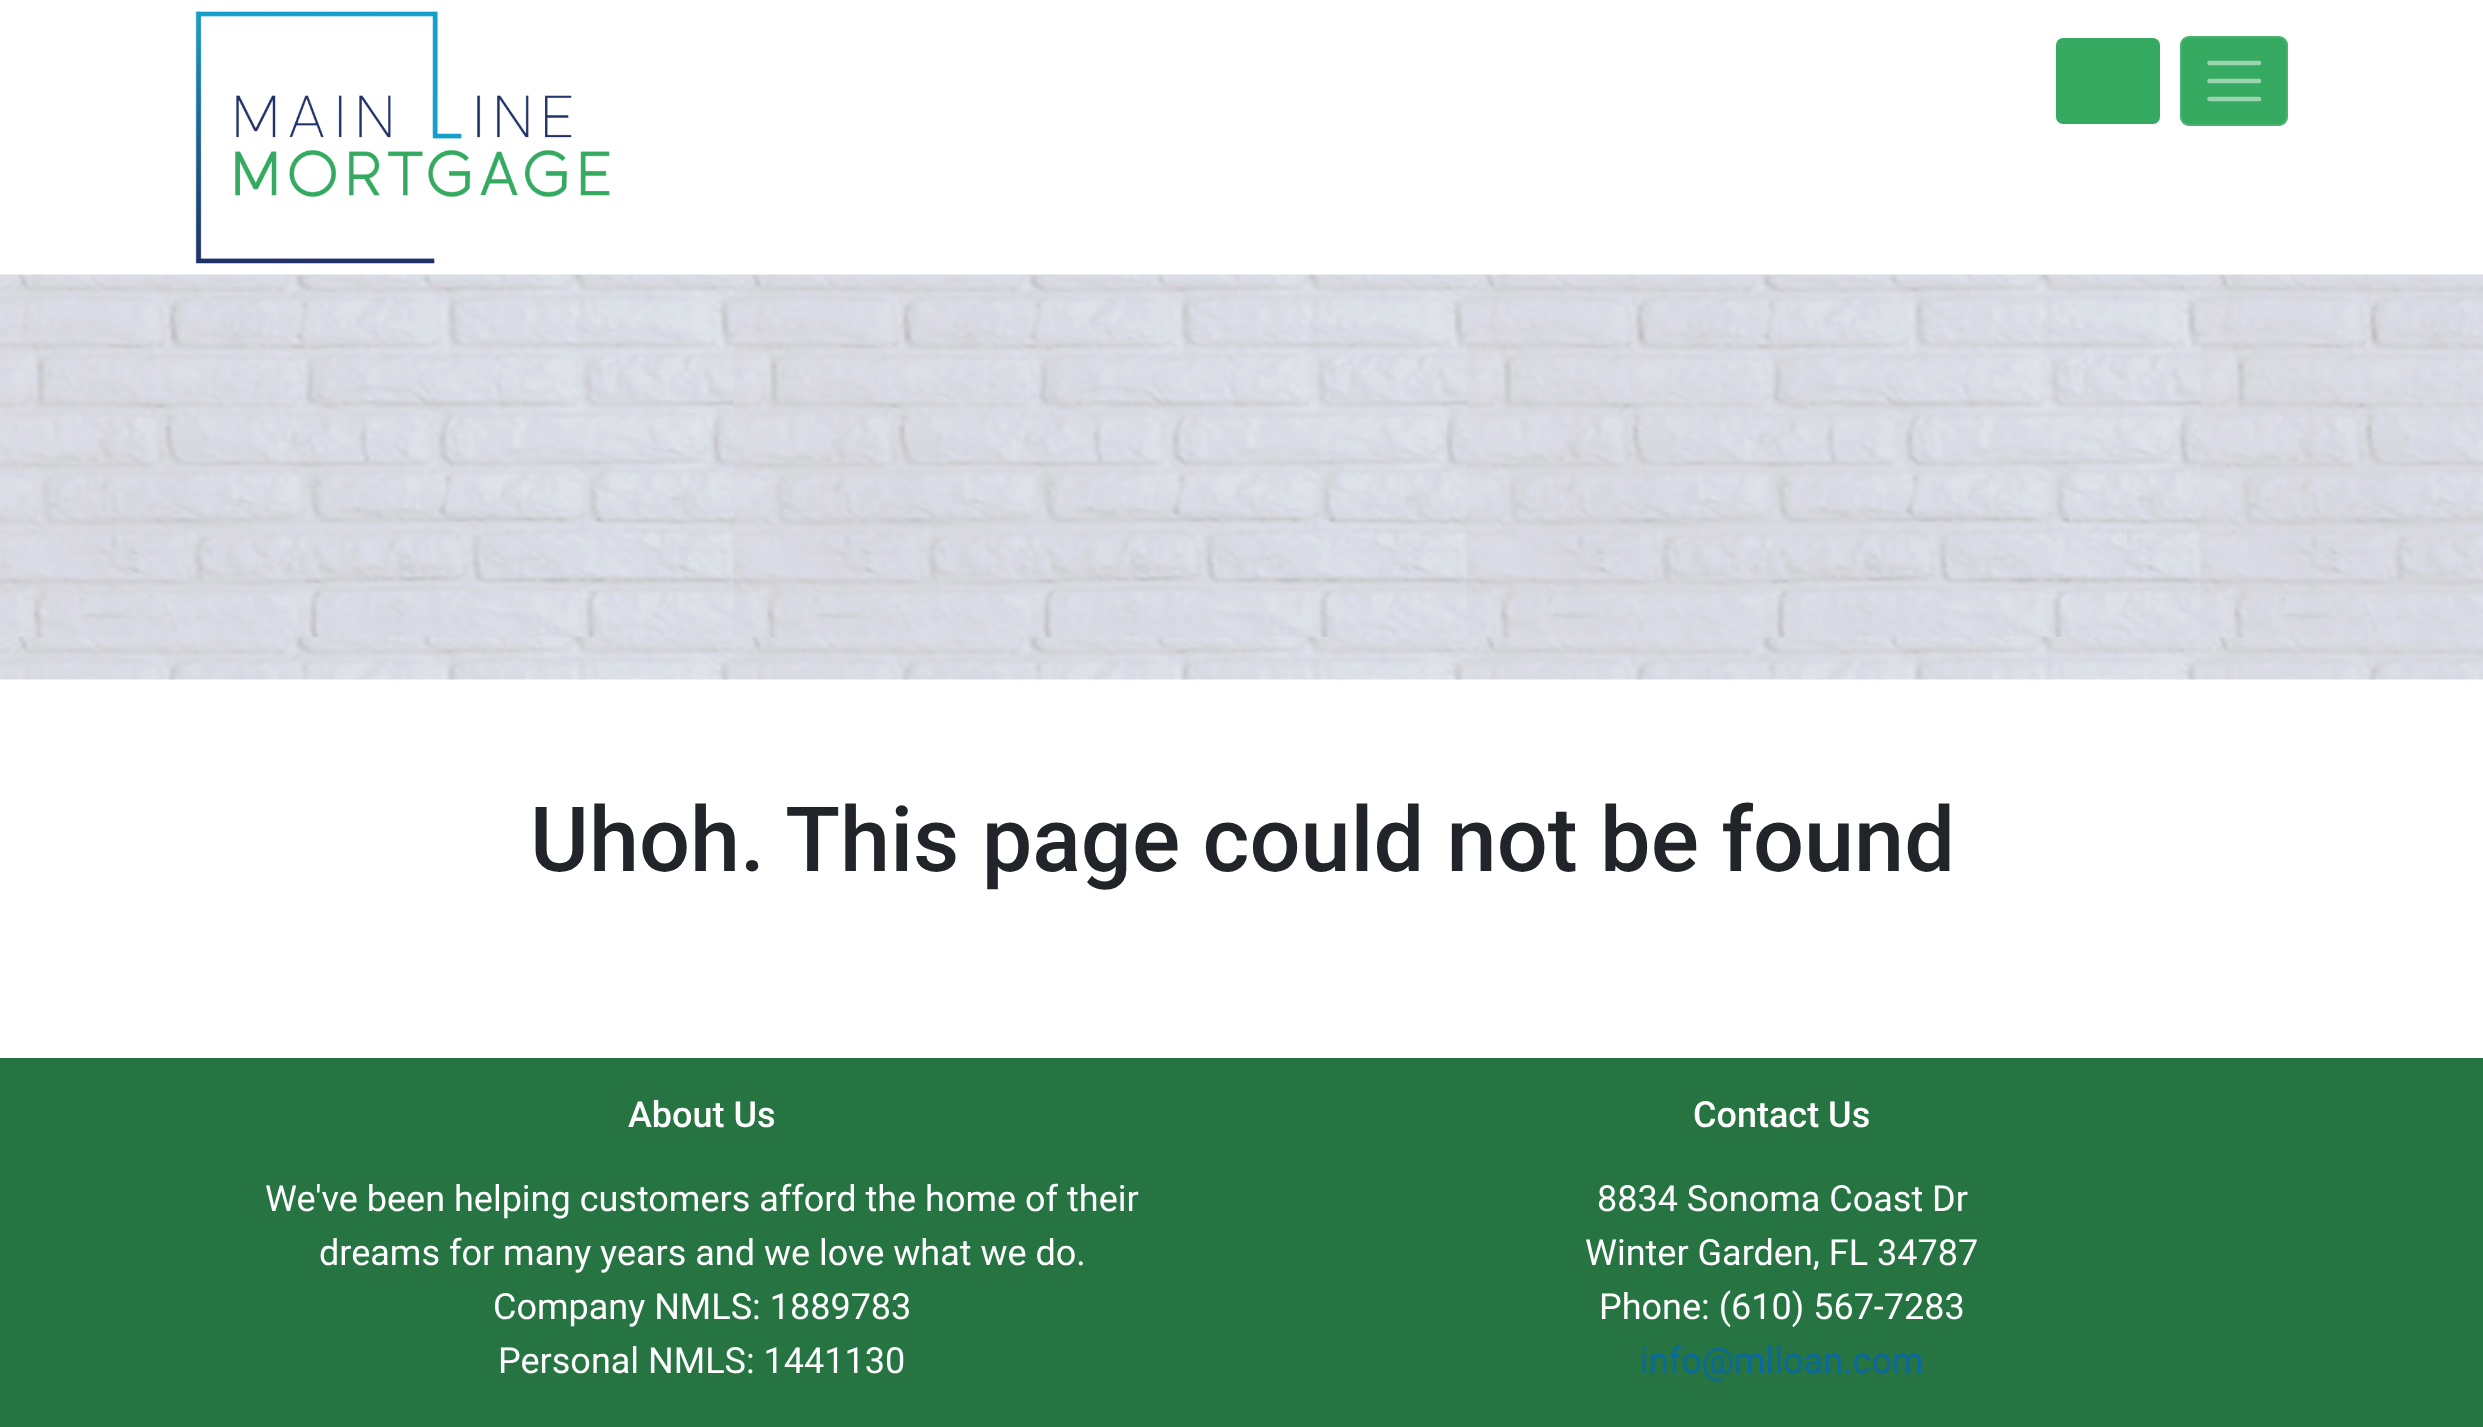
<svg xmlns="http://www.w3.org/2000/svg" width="2483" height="1427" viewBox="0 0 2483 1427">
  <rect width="100%" height="100%" fill="rgb(255,255,255)"/>
  <image x="195" y="11" width="415" height="253" href="pic1.png"/>
  <rect x="2055" y="37" width="106" height="88" rx="8" fill="rgb(55,170,97)" stroke="rgb(255,255,255)" stroke-width="2"/>
  <rect x="2180" y="36" width="108" height="90" rx="9" fill="rgb(55,170,97)"/>
  <rect x="2181" y="37" width="106" height="88" rx="8" fill="none" stroke="rgba(255,255,255,0.1)" stroke-width="2"/>
  <path d="M2209.5 63H2259M2209.5 81H2259M2209.5 99H2259" fill="none" stroke="rgb(155,213,176)" stroke-width="4.5" stroke-linecap="round"/>
  <image x="0" y="274" width="2483" height="406" href="pic2.png"/>
  <text x="530" y="871" font-family="Roboto" font-size="90" font-weight="500" fill="rgb(33,37,41)">Uhoh. This page could not be found</text>
  <rect x="0" y="1058" width="2483" height="369" fill="rgb(38,116,66)"/>
  <text x="628" y="1127" font-family="Roboto" font-size="36" font-weight="500" fill="rgb(255,255,255)">About Us</text>
  <g font-family="Roboto" font-size="36" fill="rgb(255,255,255)">
    <text x="265" y="1211">We've been helping customers afford the home of their</text>
    <text x="319" y="1265">dreams for many years and we love what we do.</text>
    <text x="493" y="1319">Company NMLS: 1889783</text>
    <text x="498" y="1373">Personal NMLS: 1441130</text>
  </g>
  <text x="1693" y="1127" font-family="Roboto" font-size="36" font-weight="500" fill="rgb(255,255,255)">Contact Us</text>
  <g font-family="Roboto" font-size="36" fill="rgb(255,255,255)">
    <text x="1597" y="1211">8834 Sonoma Coast Dr</text>
    <text x="1585" y="1265">Winter Garden, FL 34787</text>
    <text x="1599" y="1319">Phone: (610) 567-7283</text>
  </g>
  <text x="1640" y="1373" font-family="Roboto" font-size="36" fill="rgb(9,105,160)">info@mlloan.com</text>
</svg>
